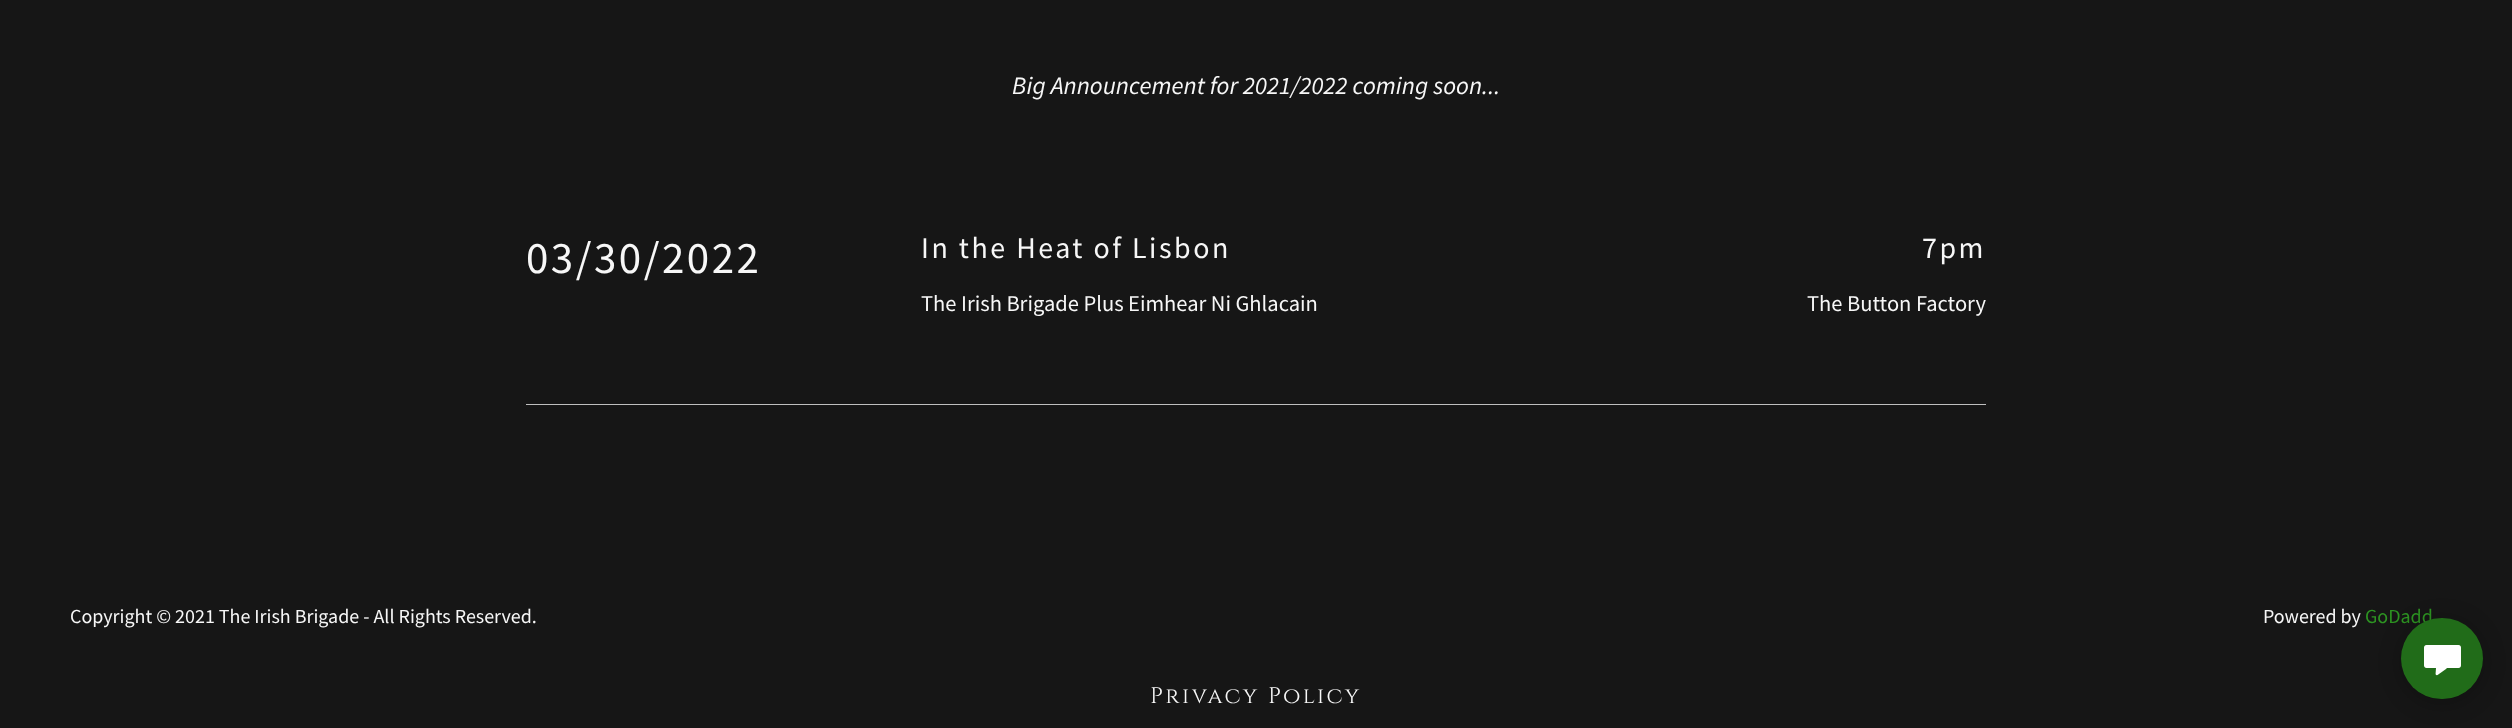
<svg xmlns="http://www.w3.org/2000/svg" width="2512" height="728" viewBox="0 0 2512 728">
  <rect width="100%" height="100%" fill="rgb(22,22,22)"/>
  <text x="1012" y="94" font-family="Source Sans Pro" font-size="25" font-style="italic" fill="rgb(247,247,247)">Big Announcement for 2021/2022 coming soon...</text>
  <rect x="526" y="404" width="1460" height="1" fill="rgb(191,191,191)"/>
  <text x="526" y="273" font-family="Source Sans Pro" font-size="45" letter-spacing="2.5" fill="rgb(247,247,247)">03/30/2022</text>
  <text x="921" y="258" font-family="Source Sans Pro" font-size="30" letter-spacing="2.5" fill="rgb(247,247,247)">In the Heat of Lisbon</text>
  <text x="921" y="311" font-family="Source Sans Pro" font-size="22.5" fill="rgb(247,247,247)">The Irish Brigade Plus Eimhear Ni Ghlacain</text>
  <text x="1922" y="258" font-family="Source Sans Pro" font-size="30" letter-spacing="2.5" fill="rgb(247,247,247)">7pm</text>
  <text x="1807" y="311" font-family="Source Sans Pro" font-size="22.5" fill="rgb(247,247,247)">The Button Factory</text>
  <g font-family="Source Sans Pro" font-size="20" fill="rgb(247,247,247)">
    <text x="70" y="623">Copyright © 2021 The Irish Brigade - All Rights Reserved.</text>
    <text x="2263" y="623">Powered by</text>
  </g>
  <text x="2365" y="623" font-family="Source Sans Pro" font-size="20" fill="rgb(45,148,34)">GoDadd</text>
  <text x="1150" y="703" font-family="Cinzel" font-size="22.5" letter-spacing="2.5" fill="rgb(247,247,247)">Privacy Policy</text>
  <rect x="2401" y="621" width="82" height="82" rx="41" fill="rgba(0,0,0,0.25)" filter="blur(11px)"/>
  <rect x="2401" y="618" width="82" height="81" rx="40.5" fill="rgb(33,108,25)"/>
  <image x="2424" y="645" width="37" height="31" href="pic1.png"/>
</svg>
